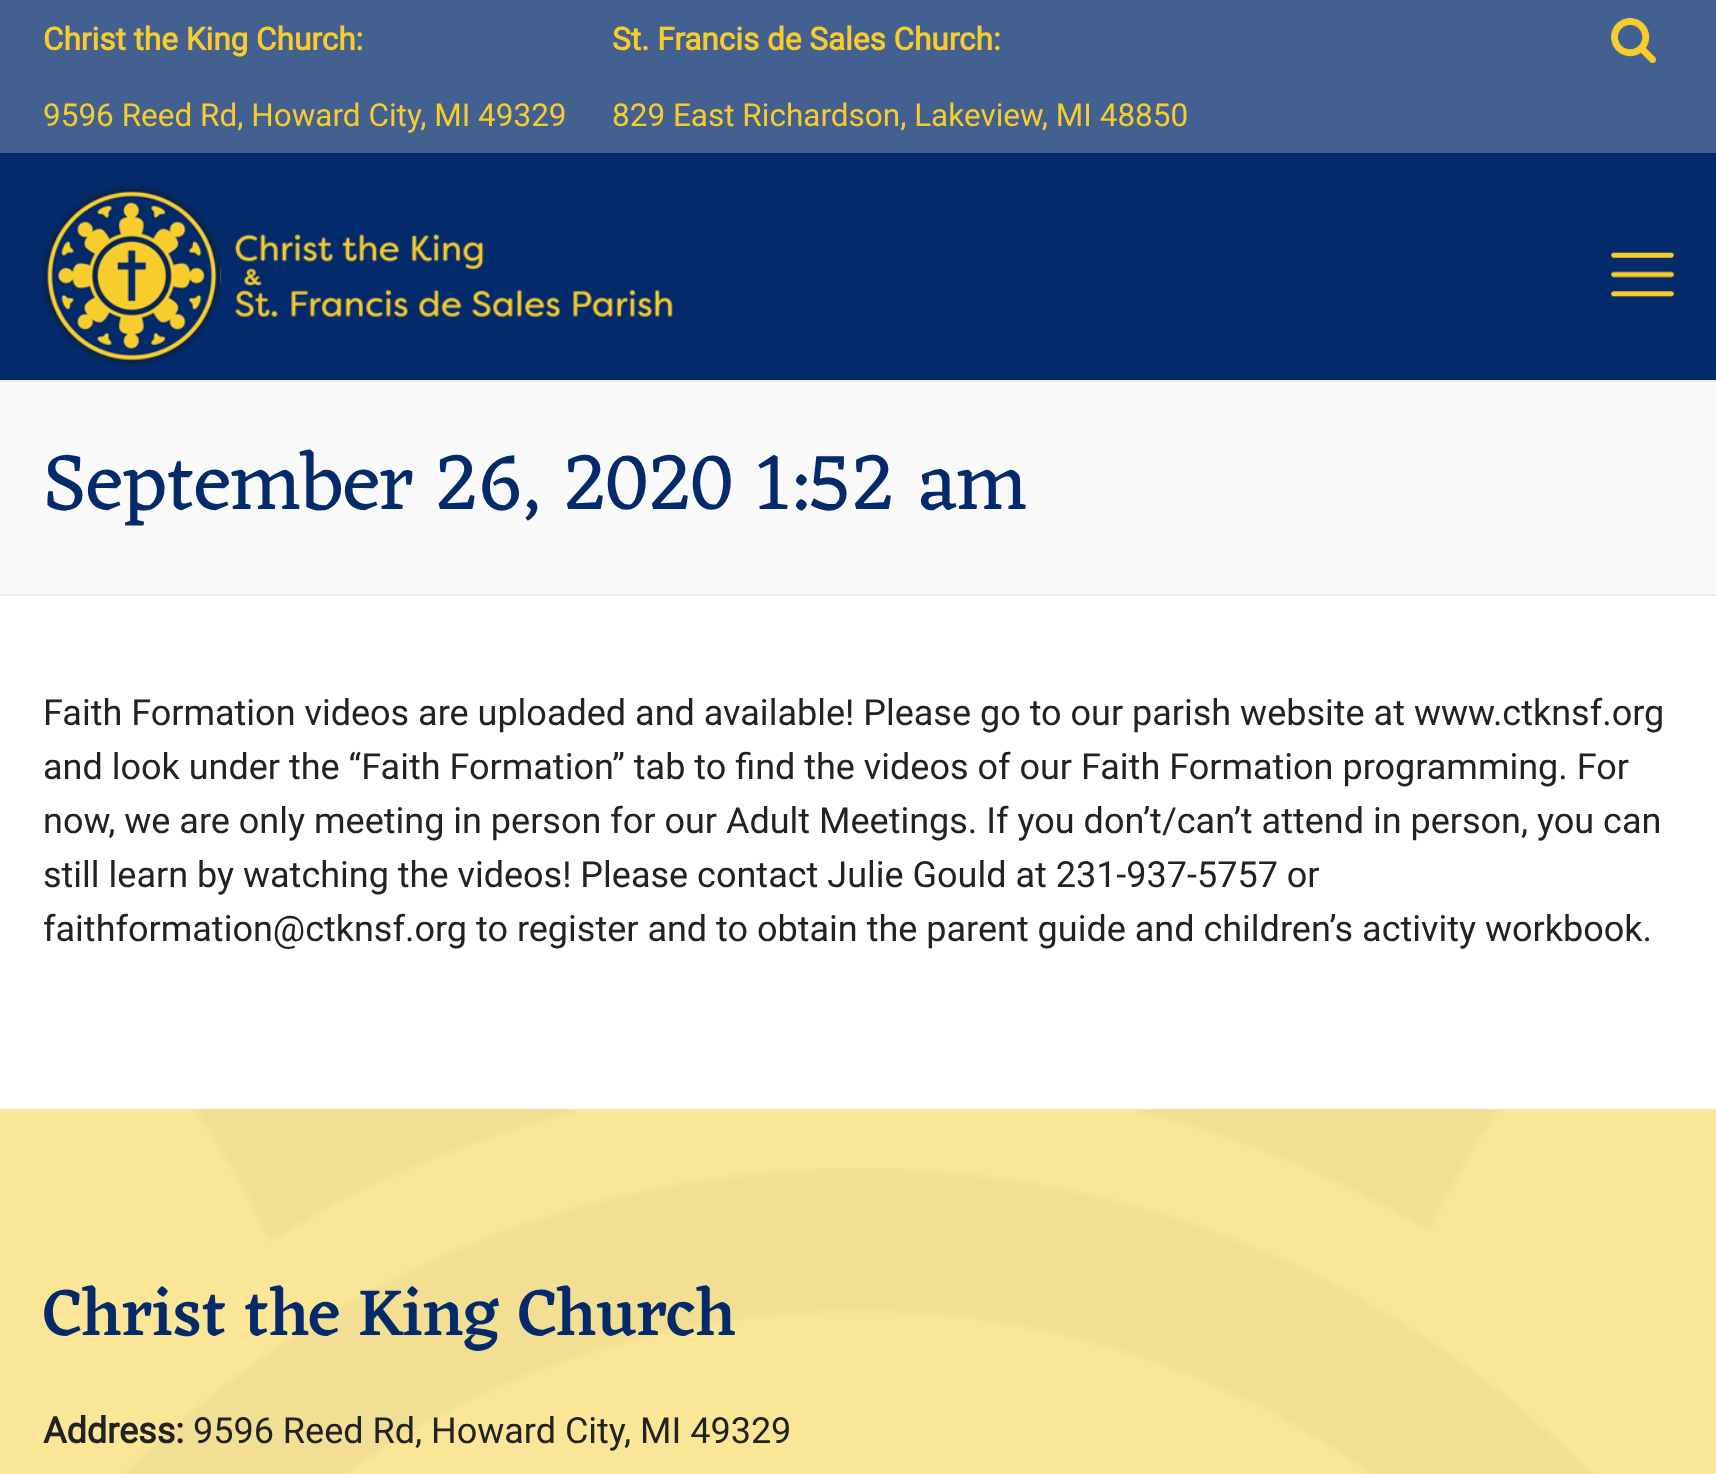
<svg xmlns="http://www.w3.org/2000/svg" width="1716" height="1474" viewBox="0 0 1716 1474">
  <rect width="100%" height="100%" fill="rgb(255,255,255)"/>
  <rect x="0" y="0" width="1716" height="153" fill="rgb(66,97,144)"/>
  <text x="43" y="50" font-family="Roboto" font-size="31.5" font-weight="bold" fill="rgb(248,204,45)">Christ the King Church:</text>
  <text x="43" y="126" font-family="Roboto" font-size="31.5" fill="rgb(248,204,45)">9596 Reed Rd, Howard City, MI 49329</text>
  <text x="612" y="50" font-family="Roboto" font-size="31.5" font-weight="bold" fill="rgb(248,204,45)">St. Francis de Sales Church:</text>
  <text x="612" y="126" font-family="Roboto" font-size="31.5" fill="rgb(248,204,45)">829 East Richardson, Lakeview, MI 48850</text>
  <image x="1611" y="18" width="45" height="45" href="pic1.png"/>
  <rect x="0" y="153" width="1716" height="227" fill="rgb(3,42,107)"/>
  <image x="42" y="186" width="631" height="179" href="pic2.png"/>
  <image x="1611" y="251" width="63" height="47" href="pic3.png"/>
  <rect x="0" y="382" width="1716" height="212" fill="rgb(250,250,250)"/>
  <rect x="0" y="380" width="1716" height="2" fill="rgb(238,238,238)"/>
  <rect x="0" y="594" width="1716" height="2" fill="rgb(238,238,238)"/>
  <text x="43" y="509" font-family="Eczar" font-size="81" fill="rgb(3,42,107)">September 26, 2020 1:52 am</text>
  <g font-family="Roboto" font-size="36" fill="rgb(34,34,34)">
    <text>
      <tspan x="43" y="725">Faith Formation videos are uploaded and available! Please go to our parish website at www.ctknsf.org</tspan>
      <tspan x="43" y="779">and look under the “Faith Formation” tab to find the videos of our Faith Formation programming. For</tspan>
      <tspan x="43" y="833">now, we are only meeting in person for our Adult Meetings. If you don’t/can’t attend in person, you can</tspan>
      <tspan x="43" y="887">still learn by watching the videos! Please contact Julie Gould at 231-937-5757 or</tspan>
      <tspan x="43" y="941">faithformation@ctknsf.org to register and to obtain the parent guide and children’s activity workbook.</tspan>
    </text>
  </g>
  <rect x="0" y="1109" width="1716" height="365" fill="rgb(251,230,151)"/>
  <image x="123" y="1109" width="1471" height="365" href="pic4.png"/>
  <text x="43" y="1335" font-family="Eczar" font-size="67.5" font-weight="500" fill="rgb(3,42,107)">Christ the King Church</text>
  <text x="43" y="1443" font-family="Roboto" font-size="36" font-weight="bold" fill="rgb(34,34,34)">Address:</text>
  <text x="193" y="1443" font-family="Roboto" font-size="36" fill="rgb(34,34,34)">9596 Reed Rd, Howard City, MI 49329</text>
</svg>
